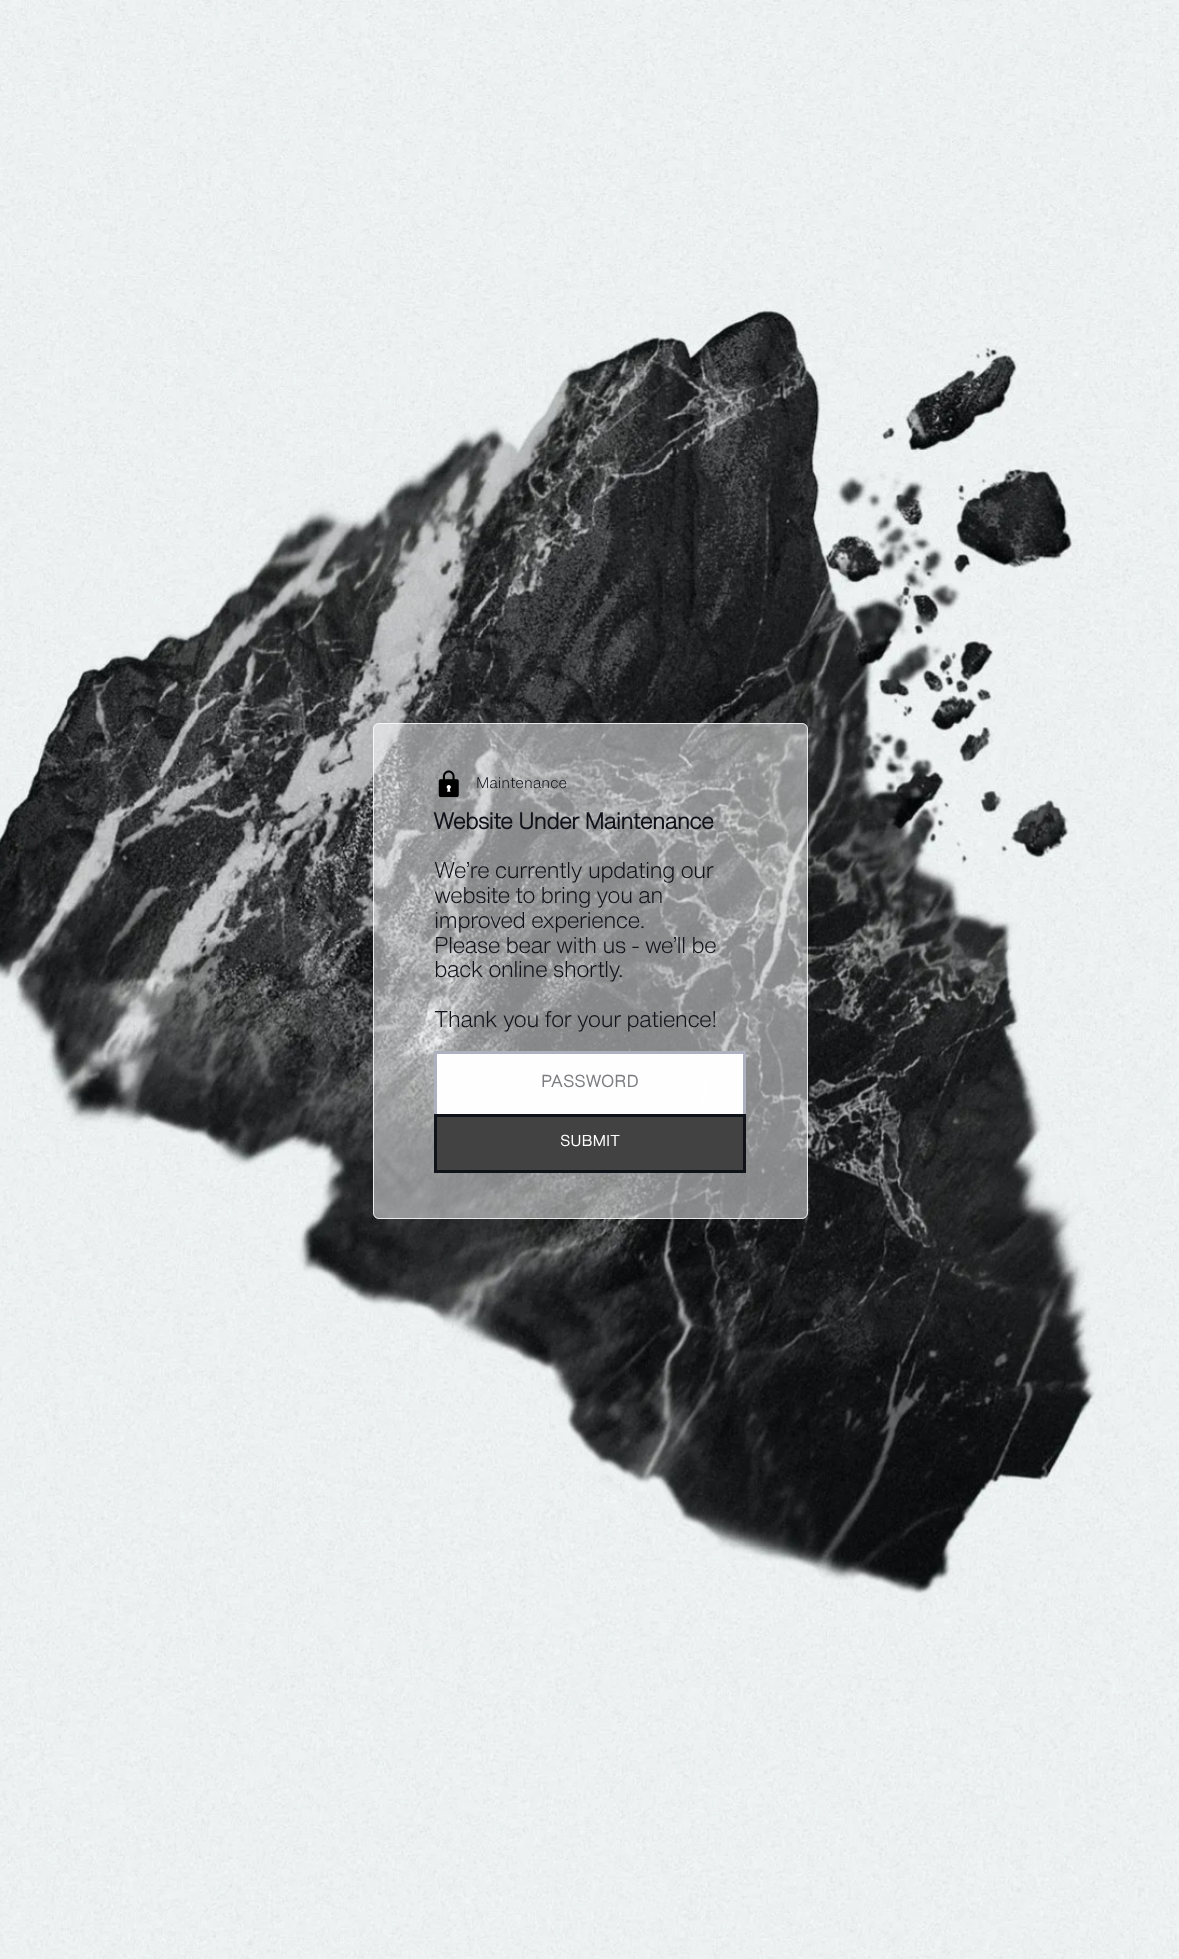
<svg xmlns="http://www.w3.org/2000/svg" width="1179" height="1959" viewBox="0 0 1179 1959">
  <rect width="100%" height="100%" fill="rgb(255,255,255)"/>
  <image x="0" y="0" width="1179" height="1959" href="pic1.png"/>
  <rect x="373" y="723" width="435" height="496" rx="6" fill="rgba(255,255,255,0.5)"/>
  <rect x="373.5" y="723.5" width="434" height="495" rx="5.5" fill="none" stroke="rgba(255,255,255,0.8)"/>
  <image x="438" y="770" width="21" height="28" href="pic2.png"/>
  <text x="476" y="788" font-family="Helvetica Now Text" font-size="15" font-weight="300" fill="rgb(16,18,26)">Maintenance</text>
  <text x="433" y="829" font-family="Helvetica Now Text" font-size="22.5" font-weight="bold" letter-spacing="-0.7" fill="rgb(16,18,26)">Website Under Maintenance</text>
  <g font-family="Helvetica Now Text" font-size="22.5" font-weight="300" letter-spacing="-0.7" fill="rgb(16,18,26)">
    <text>
      <tspan x="434" y="878">We’re currently updating our</tspan>
      <tspan x="434" y="903">website to bring you an</tspan>
      <tspan x="434" y="928">improved experience.</tspan>
      <tspan x="434" y="953">Please bear with us - we’ll be</tspan>
      <tspan x="434" y="977">back online shortly.</tspan>
    </text>
    <text x="434" y="1027">Thank you for your patience!</text>
  </g>
  <rect x="437" y="1054" width="306" height="60" fill="rgba(255,255,255,0.99)"/>
  <rect x="435.5" y="1052.5" width="309" height="64" fill="none" stroke="rgb(173,176,190)" stroke-width="3"/>
  <text x="541" y="1087" font-family="Helvetica Now Text" font-size="16.5" font-weight="bold" letter-spacing="0.25" fill="rgb(124,125,129)">PASSWORD</text>
  <rect x="435.5" y="1115.5" width="309" height="56" fill="rgb(66,66,66)" stroke="rgb(16,18,26)" stroke-width="3"/>
  <text x="560" y="1146" font-family="Helvetica Now Text" font-size="15" font-weight="bold" letter-spacing="0.25" fill="rgb(255,255,255)">SUBMIT</text>
</svg>
